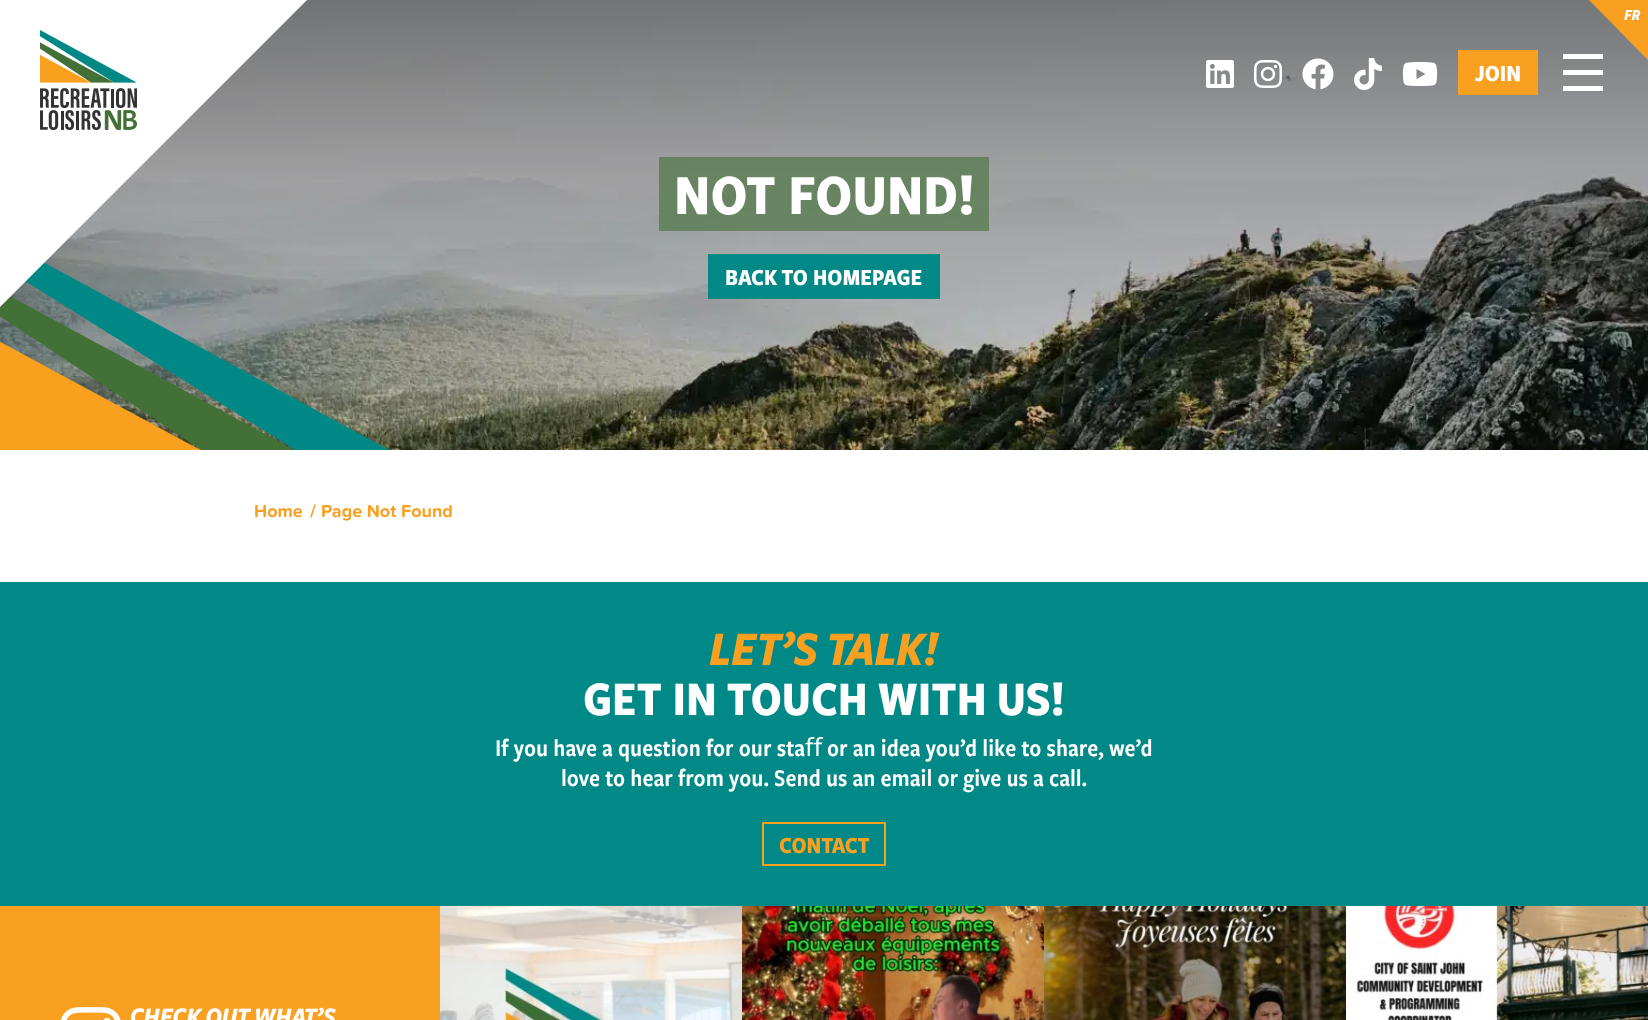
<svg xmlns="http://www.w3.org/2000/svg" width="1648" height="1020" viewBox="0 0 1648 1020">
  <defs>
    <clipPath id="clip1"><rect x="0" y="220" width="395" height="230"/></clipPath>
  </defs>
  <rect width="100%" height="100%" fill="rgb(255,255,255)"/>
  <image x="0" y="0" width="1648" height="450" href="pic7.png"/>
  <path d="M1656-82L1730-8L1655 67L1581-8Z" fill="rgb(249,160,32)"/>
  <text x="1624" y="20" font-family="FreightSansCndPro" font-size="16" font-weight="bold" font-style="italic" fill="rgb(255,255,255)">FR</text>
  <g clip-path="url(#clip1)">
    <path d="M-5 236V262L300 453H395Z" fill="rgb(0,136,134)"/>
    <path d="M-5 313L206 453H300L-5 288Z" fill="rgb(66,112,54)"/>
  </g>
  <path d="M330-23L-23 330V-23Z" fill="rgb(255,255,255)"/>
  <image x="40" y="30" width="97" height="100" href="pic1.png"/>
  <image x="1206" y="60" width="28" height="28" href="pic2.png"/>
  <image x="1254" y="60" width="28" height="28" href="pic3.png"/>
  <image x="1302" y="58" width="32" height="32" href="pic4.png"/>
  <image x="1354" y="58" width="28" height="32" href="pic5.png"/>
  <image x="1402" y="62" width="36" height="24" href="pic6.png"/>
  <rect x="1458" y="50" width="80" height="45" fill="rgb(249,160,32)"/>
  <text x="1475" y="81" font-family="FreightSansCndPro" font-size="24" font-weight="bold" fill="rgb(255,255,255)">JOIN</text>
  <rect x="1563" y="54" width="40" height="5" fill="rgb(255,255,255)"/>
  <rect x="1563" y="70" width="40" height="5" fill="rgb(255,255,255)"/>
  <rect x="1563" y="86" width="40" height="5" fill="rgb(255,255,255)"/>
  <g clip-path="url(#clip1)">
    <path d="M-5 390V453H206L-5 339Z" fill="rgb(249,160,31)"/>
  </g>
  <rect x="659" y="157" width="330" height="74" fill="rgba(66,113,55,0.6)"/>
  <text x="674" y="214" font-family="FreightSansCndPro" font-size="59" font-weight="bold" fill="rgb(255,255,255)">NOT FOUND!</text>
  <rect x="708" y="254" width="232" height="45" fill="rgb(0,137,134)"/>
  <text x="725" y="285" font-family="FreightSansCndPro" font-size="24" font-weight="bold" fill="rgb(255,255,255)">BACK TO HOMEPAGE</text>
  <g font-family="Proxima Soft" font-size="18" font-weight="bold" fill="rgb(249,160,32)">
    <text x="254" y="517">Home</text>
    <text x="310" y="517">/</text>
    <text x="321" y="517">Page Not Found</text>
  </g>
  <rect x="0" y="582" width="1648" height="324" fill="rgb(0,137,134)"/>
  <text x="709" y="665" font-family="FreightSansCndPro" font-size="50" font-weight="bold" font-style="italic" fill="rgb(249,160,32)">LET’S TALK!</text>
  <text x="583" y="715" font-family="FreightSansCndPro" font-size="50" font-weight="bold" fill="rgb(255,255,255)">GET IN TOUCH WITH US!</text>
  <text x="495" y="756" font-family="FreightSansCndPro" font-size="25" font-weight="600" fill="rgb(255,255,255)">If you have a question for our sta</text>
  <text x="805" y="756" font-family="Noto Sans" font-size="25" fill="rgb(255,255,255)">ﬀ</text>
  <g font-family="FreightSansCndPro" font-size="25" font-weight="600" fill="rgb(255,255,255)">
    <text x="827" y="756">or an idea you’d like to share, we’d</text>
    <text x="561" y="786">love to hear from you. Send us an email or give us a call.</text>
  </g>
  <rect x="763" y="823" width="122" height="42" fill="none" stroke="rgb(249,160,32)" stroke-width="2"/>
  <text x="779" y="853" font-family="FreightSansCndPro" font-size="24" font-weight="bold" fill="rgb(249,160,32)">CONTACT</text>
  <rect x="0" y="906" width="440" height="114" fill="rgb(249,160,32)"/>
  <image x="60" y="1007" width="61" height="13" href="pic8.png"/>
  <text x="130" y="1025" font-family="FreightSansCndPro" font-size="26" font-weight="bold" font-style="italic" fill="rgb(255,255,255)">CHECK OUT WHAT’S</text>
  <image x="440" y="906" width="302" height="114" href="pic9.png"/>
  <image x="742" y="906" width="302" height="114" href="pic10.png"/>
  <image x="1044" y="906" width="302" height="114" href="pic11.png"/>
  <image x="1346" y="906" width="302" height="114" href="pic12.png"/>
</svg>
